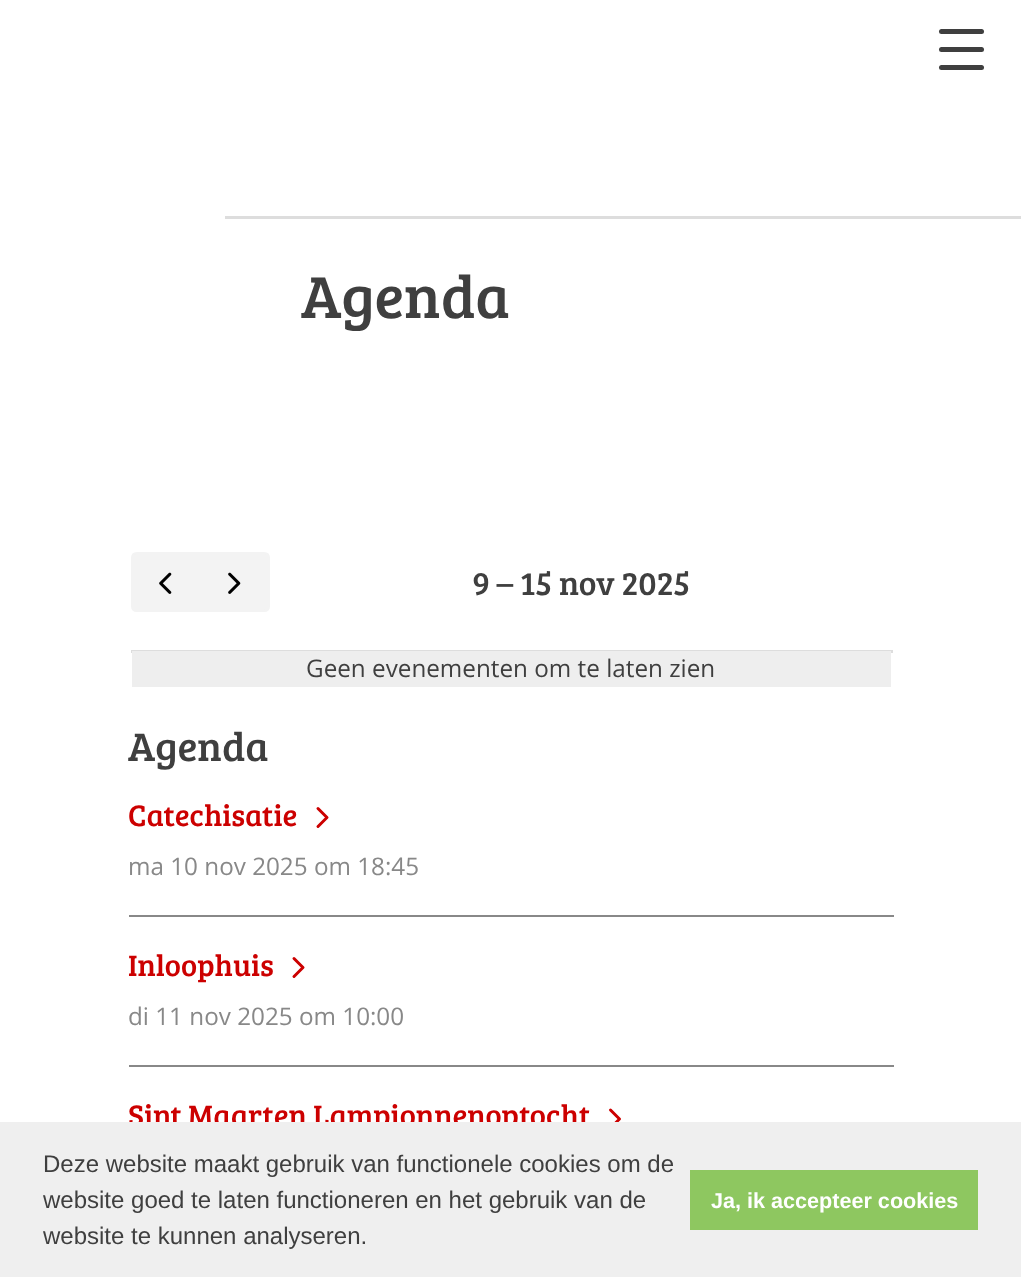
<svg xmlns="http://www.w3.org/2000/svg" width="1021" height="1277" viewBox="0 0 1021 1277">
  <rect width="100%" height="100%" fill="rgb(255,255,255)"/>
  <rect x="939" y="29" width="45" height="5" rx="2.5" fill="rgb(63,63,63)"/>
  <rect x="939" y="47" width="45" height="5" rx="2.5" fill="rgb(63,63,63)"/>
  <rect x="939" y="65" width="45" height="5" rx="2.5" fill="rgb(63,63,63)"/>
  <rect x="225" y="216" width="796" height="3" fill="rgb(221,221,221)"/>
  <text x="301" y="318" font-family="Bree Serif" font-size="61" fill="rgb(63,63,63)">Agenda</text>
  <path d="M137 553H200V611H137C134 611 132 609 132 606V558C132 555 134 553 137 553Z" fill="rgb(243,243,243)" stroke="rgb(243,243,243)" stroke-width="2"/>
  <image x="159" y="572" width="13" height="22" href="pic1.png"/>
  <path d="M201 553H264C267 553 269 555 269 558V606C269 609 267 611 264 611H201Z" fill="rgb(243,243,243)" stroke="rgb(243,243,243)" stroke-width="2"/>
  <image x="228" y="572" width="13" height="22" href="pic2.png"/>
  <text x="472" y="595" font-family="Bree Serif" font-size="33.5" fill="rgb(63,63,63)">9 – 15 nov 2025</text>
  <rect x="131" y="650" width="762" height="3" fill="rgb(221,221,221)"/>
  <rect x="132" y="651" width="759" height="36" fill="rgb(238,238,238)"/>
  <text x="306" y="677" font-family="Open Sans" font-size="24.25" fill="rgb(63,63,63)">Geen evenementen om te laten zien</text>
  <text x="128" y="761" font-family="Bree Serif" font-size="41" fill="rgb(63,63,63)">Agenda</text>
  <rect x="129" y="915" width="765" height="2" fill="rgb(136,136,136)"/>
  <text x="128" y="826" font-family="Bree Serif" font-size="30.6" fill="rgb(204,0,0)">Catechisatie</text>
  <path d="M318 826.5L327 817.5L318 808.5" fill="none" stroke="rgb(204,0,0)" stroke-width="3" stroke-linecap="round" stroke-linejoin="round"/>
  <text x="128" y="875" font-family="Open Sans" font-size="24.25" fill="rgb(136,136,136)">ma 10 nov 2025 om 18:45</text>
  <rect x="129" y="1065" width="765" height="2" fill="rgb(136,136,136)"/>
  <text x="128" y="976" font-family="Bree Serif" font-size="30.6" fill="rgb(204,0,0)">Inloophuis</text>
  <path d="M294 976.5L303 967.5L294 958.5" fill="none" stroke="rgb(204,0,0)" stroke-width="3" stroke-linecap="round" stroke-linejoin="round"/>
  <text x="128" y="1025" font-family="Open Sans" font-size="24.25" fill="rgb(136,136,136)">di 11 nov 2025 om 10:00</text>
  <text x="128" y="1126" font-family="Bree Serif" font-size="30.6" fill="rgb(204,0,0)">Sint Maarten Lampionnenoptocht</text>
  <path d="M610.5 1128L619.5 1119L610.5 1110" fill="none" stroke="rgb(204,0,0)" stroke-width="3" stroke-linecap="round" stroke-linejoin="round"/>
  <rect x="0" y="1122" width="1021" height="155" fill="rgb(239,239,239)"/>
  <g font-family="Liberation Sans" font-size="24" fill="rgb(63,63,63)">
    <text>
      <tspan x="43" y="1172">Deze website maakt gebruik van functionele cookies om de</tspan>
      <tspan x="43" y="1208">website goed te laten functioneren en het gebruik van de</tspan>
      <tspan x="43" y="1244">website te kunnen analyseren.</tspan>
    </text>
  </g>
  <rect x="690" y="1170" width="288" height="60" fill="rgb(142,199,96)"/>
  <text x="711" y="1208" font-family="Liberation Sans" font-size="21.6" font-weight="bold" fill="rgb(255,255,255)">Ja, ik accepteer cookies</text>
</svg>
